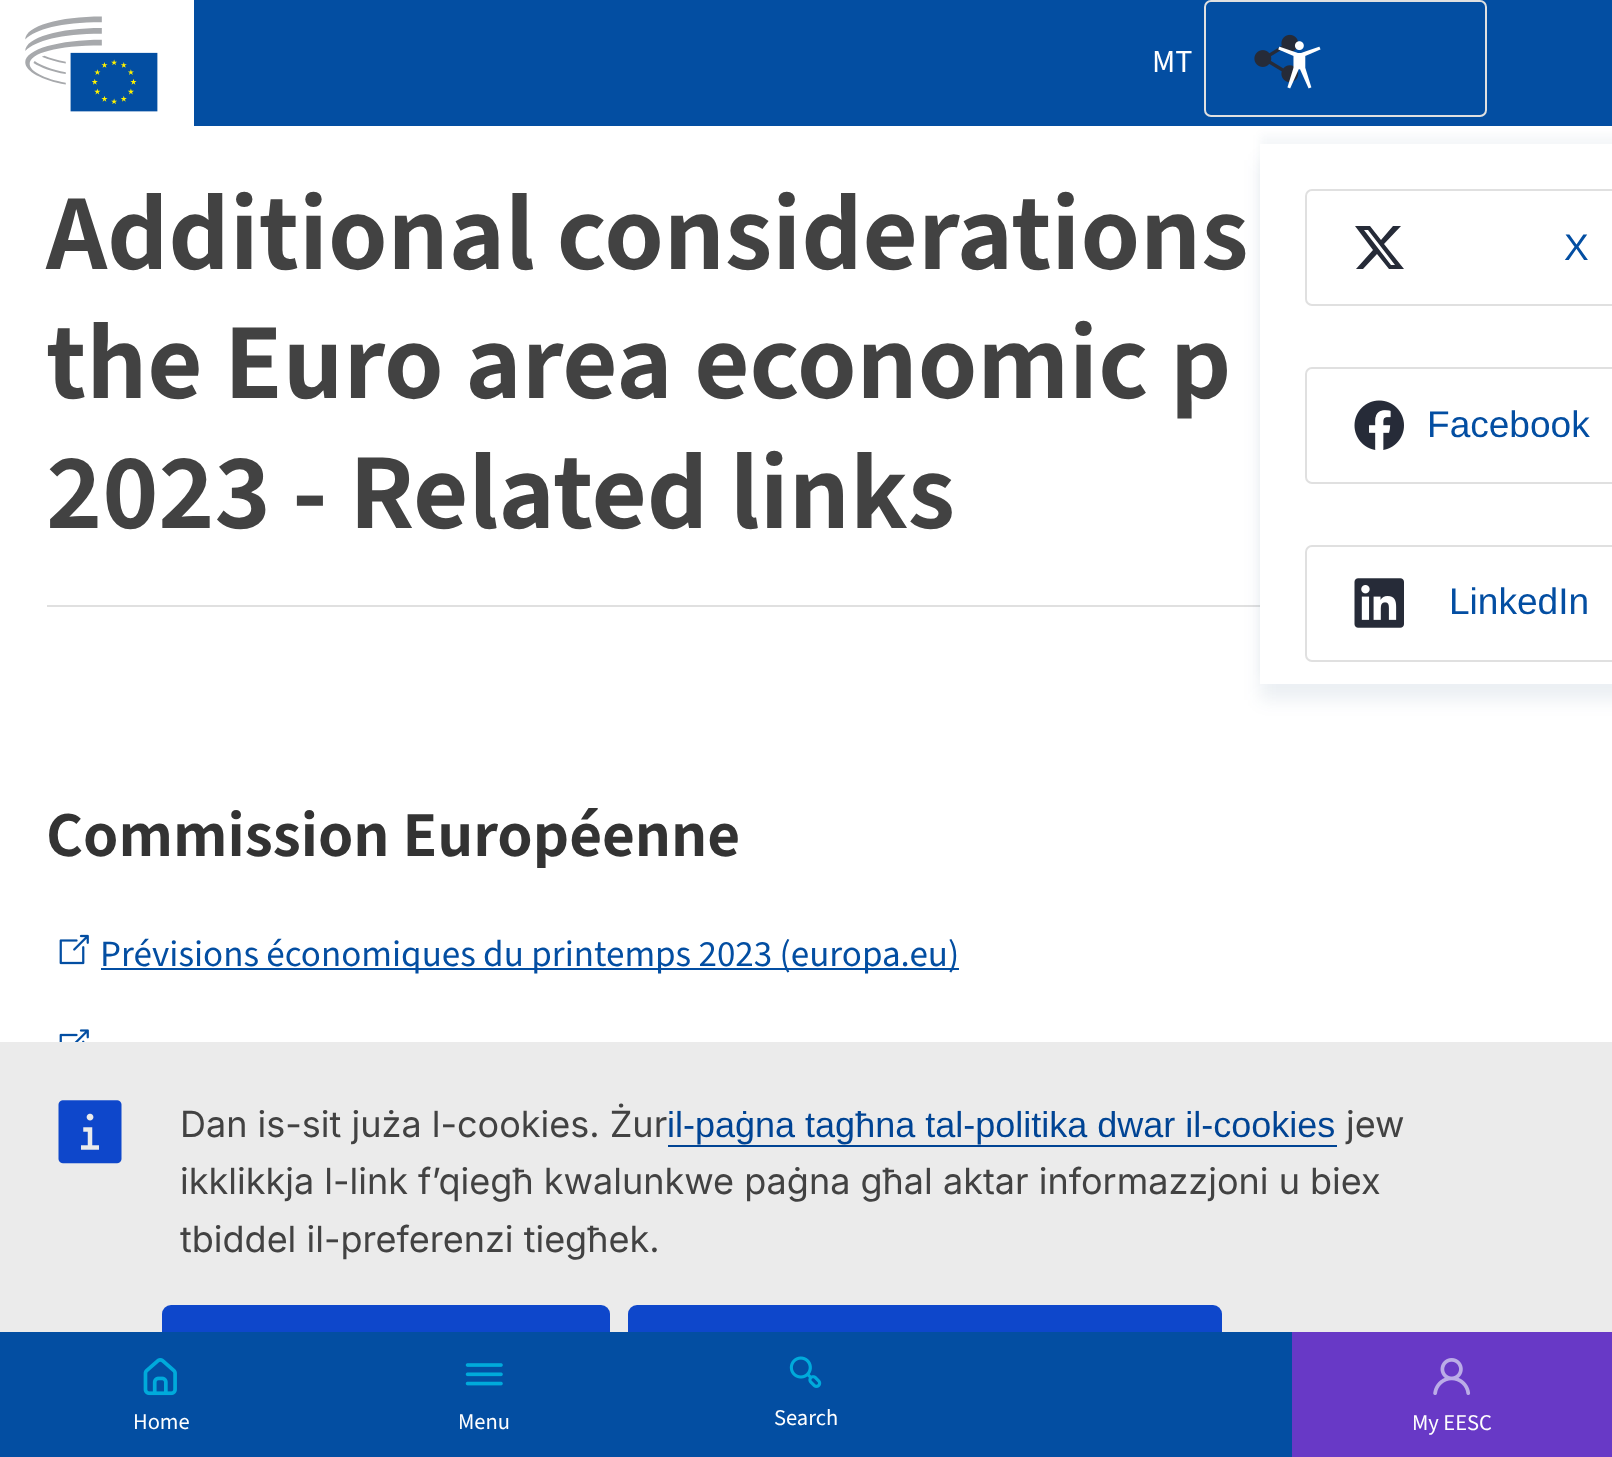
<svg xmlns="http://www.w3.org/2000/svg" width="1612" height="1457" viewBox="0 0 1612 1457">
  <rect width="100%" height="100%" fill="rgb(255,255,255)"/>
  <image x="25" y="16" width="133" height="96" href="pic1.png"/>
  <rect x="194" y="0" width="1418" height="126" fill="rgb(3,78,162)"/>
  <rect x="0" y="1042" width="1612" height="290" fill="rgb(235,235,235)"/>
  <rect x="162" y="1305" width="448" height="99" rx="9" fill="rgb(14,71,203)"/>
  <rect x="628" y="1305" width="594" height="99" rx="9" fill="rgb(14,71,203)"/>
  <rect x="0" y="1332" width="1292" height="125" fill="rgb(3,78,162)"/>
  <text x="1152" y="72" font-family="'Source Sans 3'" font-size="32" fill="rgb(254,254,254)">MT</text>
  <rect x="1205" y="1" width="281" height="115" rx="6" fill="none" stroke="rgb(224,224,224)" stroke-width="2"/>
  <image x="1254" y="34" width="45" height="49" href="pic7.png"/>
  <image x="1278" y="41" width="43" height="48" href="pic2.png"/>
  <image x="143" y="1358" width="34" height="38" href="pic3.png"/>
  <text x="133" y="1429" font-family="'Source Sans 3'" font-size="22.5" fill="rgb(254,254,254)">Home</text>
  <image x="465" y="1363" width="38" height="23" href="pic4.png"/>
  <text x="458" y="1429" font-family="'Source Sans 3'" font-size="22.5" fill="rgb(254,254,254)">Menu</text>
  <image x="789" y="1356" width="33" height="32" href="pic5.png"/>
  <text x="774" y="1425" font-family="'Source Sans 3'" font-size="22.5" fill="rgb(254,254,254)">Search</text>
  <rect x="1292" y="1332" width="320" height="125" fill="rgb(104,57,198)"/>
  <image x="1433" y="1358" width="38" height="37" href="pic6.png"/>
  <text x="1412" y="1430" font-family="'Source Sans 3'" font-size="22.5" fill="rgb(254,254,254)">My EESC</text>
  <g font-family="'Source Sans 3'" font-size="108" font-weight="600" fill="rgb(66,66,66)">
    <text>
      <tspan x="46" y="269">Additional considerations</tspan>
      <tspan x="46" y="398">the Euro area economic p</tspan>
      <tspan x="46" y="528">2023 - Related links</tspan>
    </text>
  </g>
  <rect x="47" y="605" width="1213" height="2" fill="rgb(224,224,224)"/>
  <rect x="1260" y="135" width="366" height="540" fill="rgba(0,47,103,0.04)" filter="blur(4.5px)"/>
  <rect x="1260" y="160" width="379" height="540" fill="rgba(0,47,103,0.08)" filter="blur(9px)"/>
  <rect x="1260" y="144" width="352" height="540" fill="rgb(255,255,255)"/>
  <rect x="1306" y="190" width="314" height="115" rx="6" fill="none" stroke="rgb(224,224,224)" stroke-width="2"/>
  <path d="M1393 226H1401L1384 244L1404 269H1389L1377 254L1363 269H1356L1373 250L1355 226H1370L1381 240ZM1391 265H1395L1368 230H1364Z" fill="rgb(38,43,56)"/>
  <text x="1564" y="260" font-family="Liberation Sans" font-size="37.05" fill="rgb(3,78,162)">X</text>
  <rect x="1306" y="368" width="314" height="115" rx="6" fill="none" stroke="rgb(224,224,224)" stroke-width="2"/>
  <image x="1354" y="400" width="50" height="50" href="pic8.png"/>
  <text x="1427" y="437" font-family="Liberation Sans" font-size="37.05" fill="rgb(3,78,162)">Facebook</text>
  <rect x="1306" y="546" width="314" height="115" rx="6" fill="none" stroke="rgb(224,224,224)" stroke-width="2"/>
  <image x="1354" y="578" width="50" height="50" href="pic9.png"/>
  <text x="1449" y="614" font-family="Liberation Sans" font-size="37.05" fill="rgb(3,78,162)">LinkedIn</text>
  <text x="46" y="856" font-family="'Source Sans 3'" font-size="64.1" font-weight="600" fill="rgb(51,51,51)">Commission Européenne</text>
  <image x="59" y="934" width="30" height="31" href="pic10.png"/>
  <rect x="101" y="968" width="858" height="2" fill="rgb(3,78,162)"/>
  <text x="100" y="966" font-family="'Source Sans 3'" font-size="37.05" fill="rgb(3,78,162)">Prévisions économiques du printemps 2023 (europa.eu)</text>
  <image x="59" y="1029" width="30" height="13" href="pic11.png"/>
  <image x="58" y="1100" width="64" height="64" href="pic12.png"/>
  <text x="180" y="1137" font-family="Inter" font-size="36" fill="rgb(66,66,66)">Dan is-sit juża l-cookies. Żur</text>
  <text x="667" y="1137" font-family="Liberation Sans" font-size="36" fill="rgb(0,68,148)">il-paġna tagħna tal-politika dwar il-cookies</text>
  <rect x="668" y="1145" width="669" height="2" fill="rgb(0,68,148)"/>
  <g font-family="Inter" font-size="36" fill="rgb(66,66,66)">
    <text x="1346" y="1137">jew</text>
    <text>
      <tspan x="180" y="1194">ikklikkja l-link f’qiegħ kwalunkwe paġna għal aktar informazzjoni u biex</tspan>
      <tspan x="180" y="1252">tbiddel il-preferenzi tiegħek.</tspan>
    </text>
  </g>
</svg>
